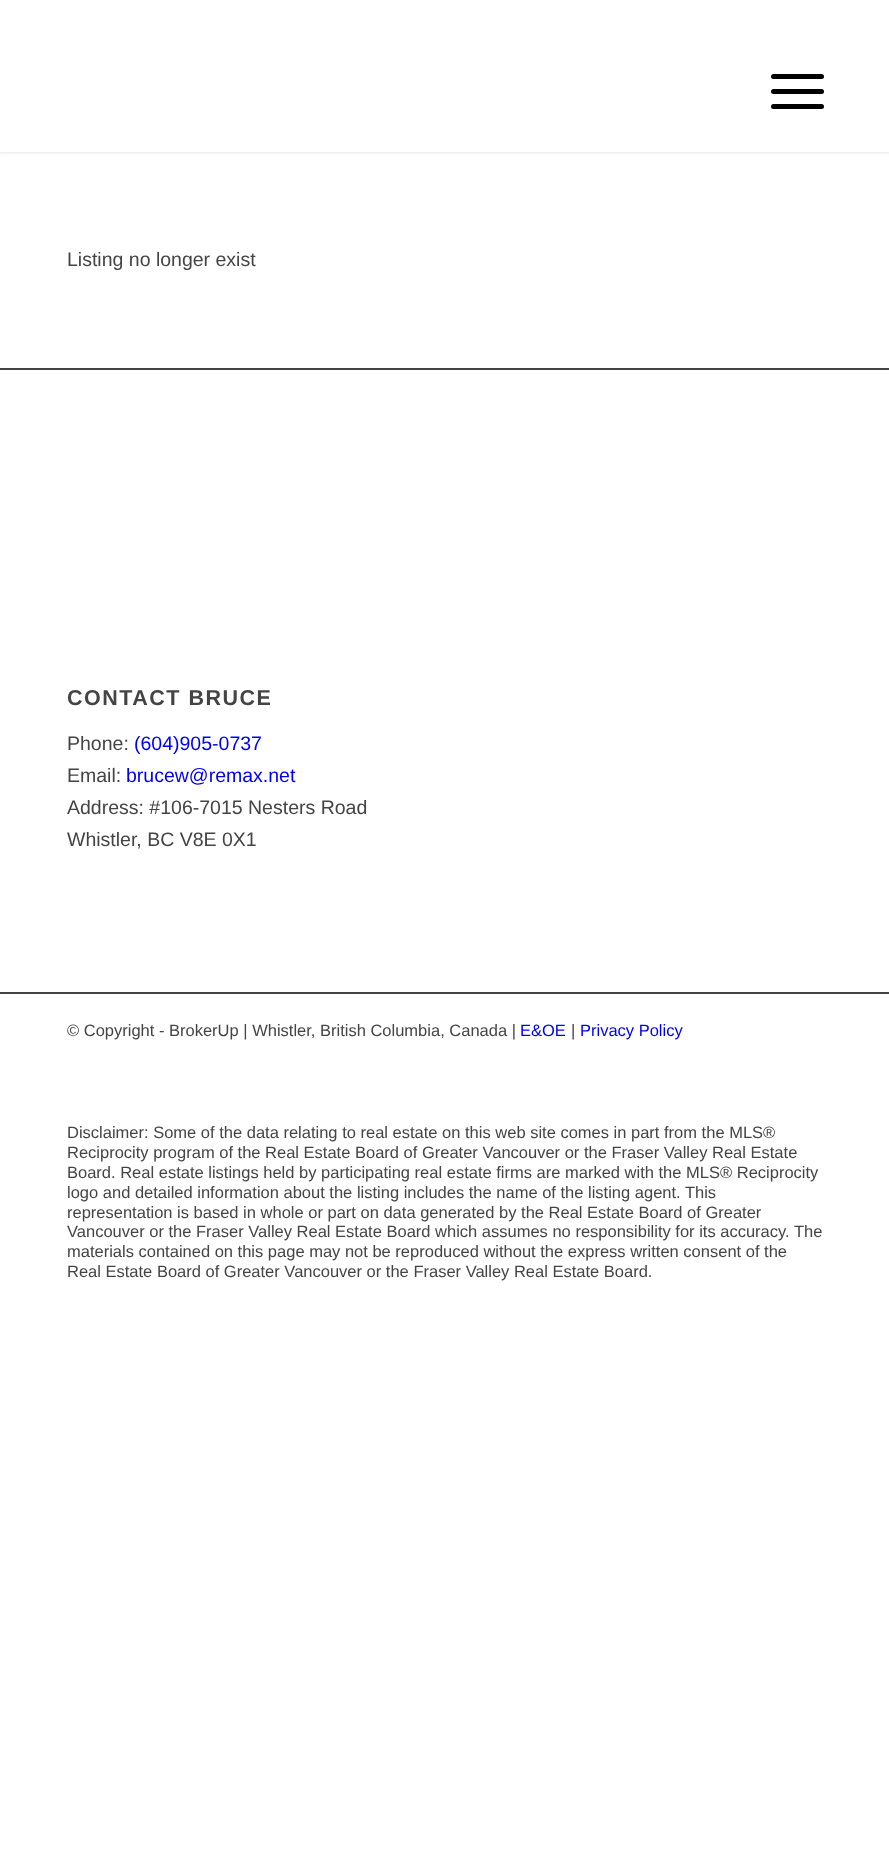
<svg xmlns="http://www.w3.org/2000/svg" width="889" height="1872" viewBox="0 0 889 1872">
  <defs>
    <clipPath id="clip1"><rect x="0" y="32" width="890" height="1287"/></clipPath>
    <clipPath id="clip2"><path d="M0 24H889V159H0ZM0 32H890V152H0Z" clip-rule="evenodd"/></clipPath>
  </defs>
  <rect width="100%" height="100%" fill="rgb(255,255,255)"/>
  <g clip-path="url(#clip1)">
    <g clip-path="url(#clip2)">
      <rect x="-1" y="30" width="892" height="123" fill="rgba(0,0,0,0.1)" filter="blur(1.5px)"/>
    </g>
  </g>
  <rect x="771" y="89" width="53" height="5" rx="2.5" fill="rgb(0,0,0)"/>
  <rect x="771" y="74" width="53" height="5" rx="2.5" fill="rgb(0,0,0)"/>
  <rect x="771" y="104" width="53" height="5" rx="2.5" fill="rgb(0,0,0)"/>
  <text x="67" y="266" font-family="Liberation Sans" font-size="19.5" fill="rgb(68,68,68)">Listing no longer exist</text>
  <rect x="0" y="368" width="889" height="2" fill="rgb(68,68,68)"/>
  <text x="67" y="705" font-family="Liberation Sans" font-size="21.5" font-weight="bold" letter-spacing="1.5" fill="rgb(68,68,68)">CONTACT BRUCE</text>
  <text x="67" y="750" font-family="Liberation Sans" font-size="19.5" fill="rgb(68,68,68)">Phone:</text>
  <text x="134" y="750" font-family="Liberation Sans" font-size="19.5" fill="rgb(0,0,238)">(604)905-0737</text>
  <text x="67" y="782" font-family="Liberation Sans" font-size="19.5" fill="rgb(68,68,68)">Email:</text>
  <text x="126" y="782" font-family="Liberation Sans" font-size="19.5" fill="rgb(0,0,238)">brucew@remax.net</text>
  <g font-family="Liberation Sans" font-size="19.5" fill="rgb(68,68,68)">
    <text>
      <tspan x="67" y="814">Address: #106-7015 Nesters Road</tspan>
      <tspan x="67" y="846">Whistler, BC V8E 0X1</tspan>
    </text>
  </g>
  <rect x="0" y="992" width="889" height="2" fill="rgb(68,68,68)"/>
  <text x="67" y="1036" font-family="Liberation Sans" font-size="16.5" fill="rgb(68,68,68)">© Copyright - BrokerUp | Whistler, British Columbia, Canada |</text>
  <text x="520" y="1036" font-family="Liberation Sans" font-size="16.5" fill="rgb(0,0,238)">E&amp;OE</text>
  <text x="571" y="1036" font-family="Liberation Sans" font-size="16.5" fill="rgb(68,68,68)">|</text>
  <text x="580" y="1036" font-family="Liberation Sans" font-size="16.5" fill="rgb(0,0,238)">Privacy Policy</text>
  <g font-family="Liberation Sans" font-size="16.5" fill="rgb(68,68,68)">
    <text>
      <tspan x="67" y="1138">Disclaimer: Some of the data relating to real estate on this web site comes in part from the MLS®</tspan>
      <tspan x="67" y="1158">Reciprocity program of the Real Estate Board of Greater Vancouver or the Fraser Valley Real Estate</tspan>
      <tspan x="67" y="1178">Board. Real estate listings held by participating real estate firms are marked with the MLS® Reciprocity</tspan>
      <tspan x="67" y="1198">logo and detailed information about the listing includes the name of the listing agent. This</tspan>
      <tspan x="67" y="1218">representation is based in whole or part on data generated by the Real Estate Board of Greater</tspan>
      <tspan x="67" y="1237">Vancouver or the Fraser Valley Real Estate Board which assumes no responsibility for its accuracy. The</tspan>
      <tspan x="67" y="1257">materials contained on this page may not be reproduced without the express written consent of the</tspan>
      <tspan x="67" y="1277">Real Estate Board of Greater Vancouver or the Fraser Valley Real Estate Board.</tspan>
    </text>
  </g>
</svg>
